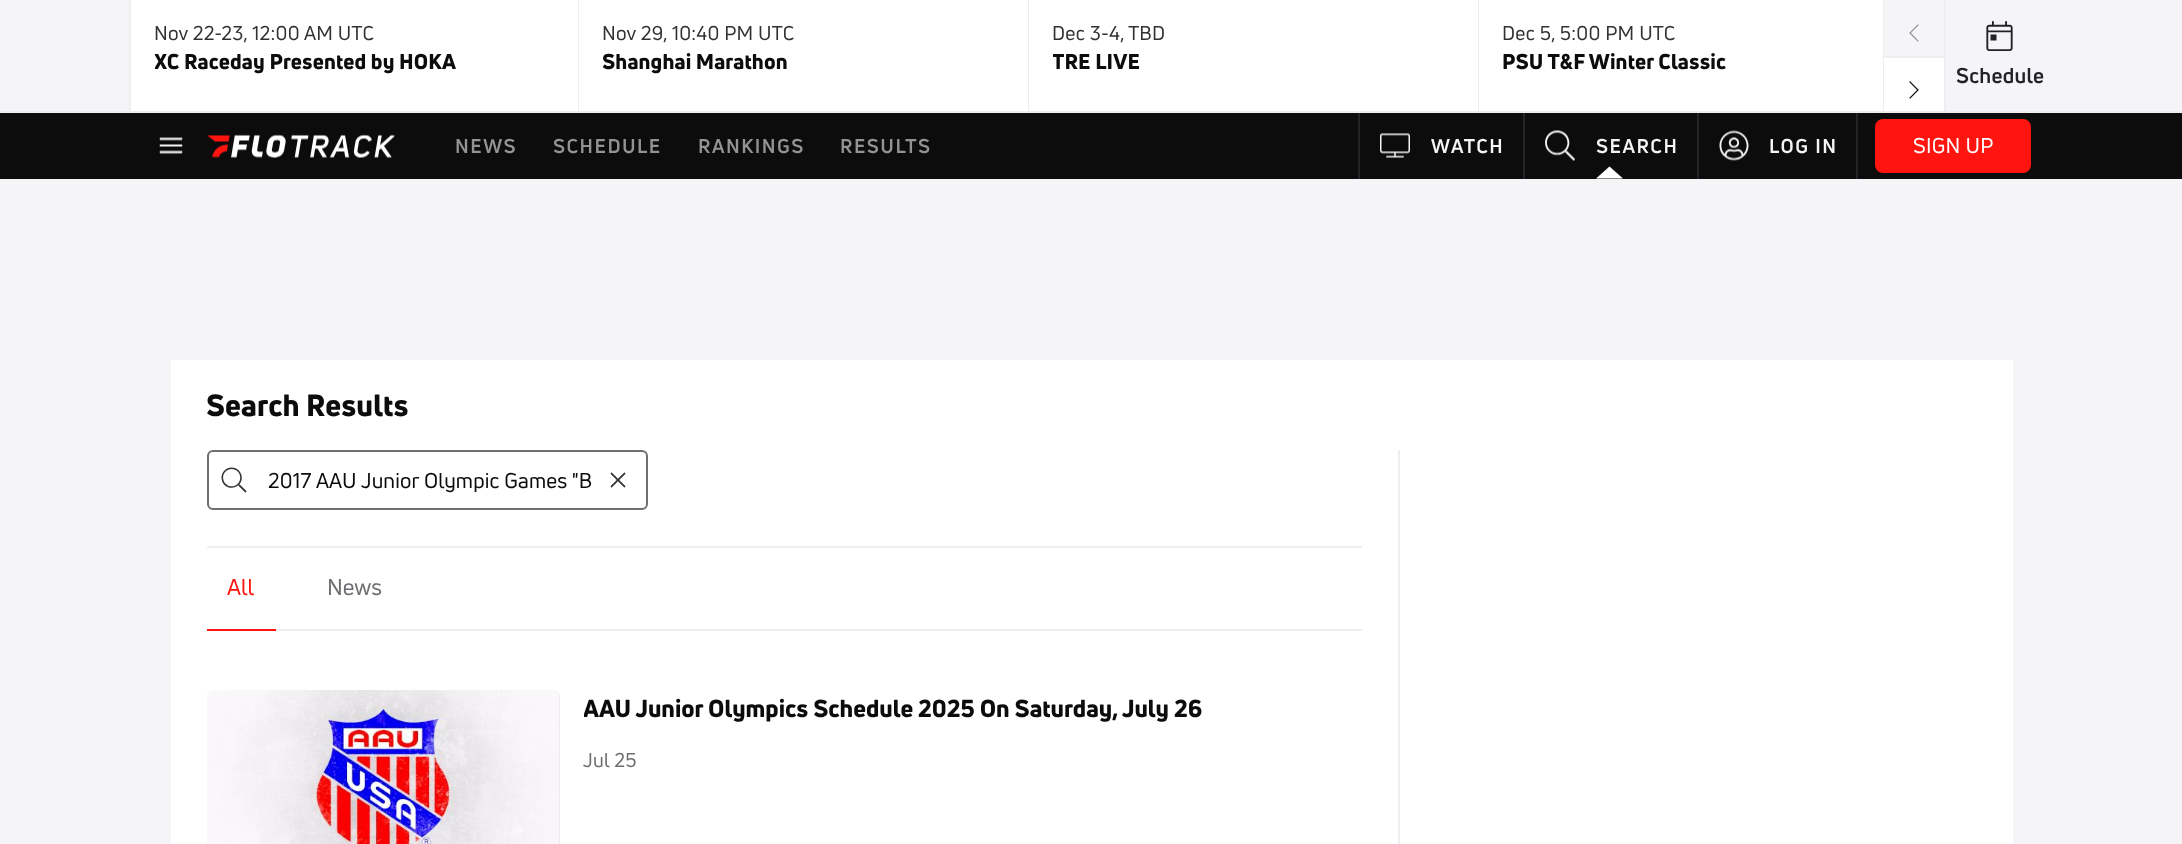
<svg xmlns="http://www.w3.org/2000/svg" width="2182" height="844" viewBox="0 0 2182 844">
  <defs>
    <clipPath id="clip1"><rect x="155" y="47" width="366" height="30"/></clipPath>
    <clipPath id="clip2"><rect x="1053" y="47" width="366" height="30"/></clipPath>
    <clipPath id="clip3"><rect x="584" y="690" width="778" height="36"/></clipPath>
  </defs>
  <rect width="100%" height="100%" fill="rgb(245,245,247)"/>
  <rect x="0" y="111" width="2182" height="2" fill="rgb(238,238,240)"/>
  <rect x="131" y="0" width="447" height="111" fill="rgb(255,255,255)"/>
  <rect x="578" y="0" width="1" height="111" fill="rgb(238,238,240)"/>
  <rect x="129" y="0" width="2" height="111" fill="rgb(238,238,240)"/>
  <text x="154" y="40" font-family="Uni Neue" font-size="19.5" letter-spacing="0.25" fill="rgb(50,50,54)">Nov 22-23, 12:00 AM UTC</text>
  <g clip-path="url(#clip1)">
    <text x="154" y="69" font-family="Uni Neue" font-size="21" font-weight="900" letter-spacing="0.15" fill="rgb(12,12,12)">XC Raceday Presented by HOKA</text>
  </g>
  <rect x="579" y="0" width="449" height="111" fill="rgb(255,255,255)"/>
  <rect x="1028" y="0" width="1" height="111" fill="rgb(238,238,240)"/>
  <text x="602" y="40" font-family="Uni Neue" font-size="19.5" letter-spacing="0.25" fill="rgb(50,50,54)">Nov 29, 10:40 PM UTC</text>
  <text x="602" y="69" font-family="Uni Neue" font-size="21" font-weight="900" letter-spacing="0.15" fill="rgb(12,12,12)">Shanghai Marathon</text>
  <rect x="1029" y="0" width="449" height="111" fill="rgb(255,255,255)"/>
  <rect x="1478" y="0" width="1" height="111" fill="rgb(238,238,240)"/>
  <text x="1052" y="40" font-family="Uni Neue" font-size="19.5" letter-spacing="0.25" fill="rgb(50,50,54)">Dec 3-4, TBD</text>
  <g clip-path="url(#clip2)">
    <text x="1052" y="69" font-family="Uni Neue" font-size="21" font-weight="900" letter-spacing="0.15" fill="rgb(12,12,12)">TRE LIVE</text>
  </g>
  <rect x="1479" y="0" width="404" height="111" fill="rgb(255,255,255)"/>
  <text x="1502" y="40" font-family="Uni Neue" font-size="19.5" letter-spacing="0.25" fill="rgb(50,50,54)">Dec 5, 5:00 PM UTC</text>
  <text x="1502" y="69" font-family="Uni Neue" font-size="21" font-weight="900" letter-spacing="0.15" fill="rgb(12,12,12)">PSU T&amp;F Winter Classic</text>
  <rect x="1883" y="0" width="1" height="111" fill="rgb(238,238,240)"/>
  <rect x="1884" y="58" width="60" height="53" fill="rgb(255,255,255)"/>
  <image x="1909" y="24" width="10" height="18" href="pic1.png"/>
  <rect x="1884" y="56" width="60" height="2" fill="rgb(238,238,240)"/>
  <image x="1909" y="81" width="10" height="18" href="pic2.png"/>
  <rect x="1944" y="0" width="2" height="111" fill="rgb(238,238,240)"/>
  <image x="1986" y="21" width="27" height="30" href="pic3.png"/>
  <text x="1956" y="83" font-family="Uni Neue" font-size="21" font-weight="bold" letter-spacing="0.25" fill="rgb(35,35,39)">Schedule</text>
  <rect x="0" y="113" width="2182" height="66" fill="rgb(12,12,12)"/>
  <image x="159" y="137" width="24" height="17" href="pic4.png"/>
  <image x="207" y="134" width="188" height="24" href="pic5.png"/>
  <g font-family="Uni Neue" font-size="19.5" font-weight="bold" letter-spacing="1.5" fill="rgb(147,147,150)">
    <text x="455" y="153">NEWS</text>
    <text x="553" y="153">SCHEDULE</text>
    <text x="698" y="153">RANKINGS</text>
    <text x="840" y="153">RESULTS</text>
  </g>
  <rect x="1358" y="113" width="2" height="66" fill="rgb(35,35,39)"/>
  <image x="1380" y="133" width="30" height="25" href="pic6.png"/>
  <text x="1431" y="153" font-family="Uni Neue" font-size="19.5" font-weight="bold" letter-spacing="1.5" fill="rgb(245,245,247)">WATCH</text>
  <rect x="1523" y="113" width="2" height="66" fill="rgb(35,35,39)"/>
  <image x="1545" y="130" width="30" height="31" href="pic7.png"/>
  <text x="1596" y="153" font-family="Uni Neue" font-size="19.5" font-weight="bold" letter-spacing="1.5" fill="rgb(245,245,247)">SEARCH</text>
  <path d="M1623 178.5H1596L1609.5 166.5Z" fill="rgb(255,255,255)"/>
  <rect x="1856" y="113" width="2" height="66" fill="rgb(35,35,39)"/>
  <rect x="1697" y="113" width="2" height="66" fill="rgb(35,35,39)"/>
  <image x="1719" y="130" width="30" height="31" href="pic8.png"/>
  <text x="1769" y="153" font-family="Uni Neue" font-size="19.5" font-weight="bold" letter-spacing="1.5" fill="rgb(245,245,247)">LOG IN</text>
  <rect x="1876" y="120" width="154" height="52" rx="7" fill="rgb(255,20,15)" stroke="rgb(255,20,15)" stroke-width="2"/>
  <text x="1913" y="153" font-family="Uni Neue" font-size="21" letter-spacing="0.25" fill="rgb(255,255,255)">SIGN UP</text>
  <rect x="171" y="360" width="1842" height="484" fill="rgb(255,255,255)"/>
  <text x="206" y="416" font-family="Uni Neue" font-size="30" font-weight="900" letter-spacing="0.15" fill="rgb(12,12,12)">Search Results</text>
  <rect x="208" y="451" width="439" height="58" rx="5" fill="none" stroke="rgb(111,111,115)" stroke-width="2"/>
  <image x="221" y="467" width="26" height="26" href="pic9.png"/>
  <text x="268" y="488" font-family="Uni Neue" font-size="21" letter-spacing="0.15" fill="rgb(12,12,12)">2017 AAU Junior Olympic Games "B</text>
  <image x="610" y="472" width="16" height="16" href="pic10.png"/>
  <rect x="207" y="546" width="1155" height="2" fill="rgb(238,238,240)"/>
  <rect x="276" y="629" width="1086" height="2" fill="rgb(238,238,240)"/>
  <rect x="207" y="629" width="69" height="2" fill="rgb(255,20,15)"/>
  <text x="227" y="595" font-family="Uni Neue" font-size="22.5" fill="rgb(255,20,15)">All</text>
  <text x="327" y="595" font-family="Uni Neue" font-size="22.5" fill="rgb(111,111,115)">News</text>
  <rect x="207" y="690" width="353" height="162" rx="8" fill="rgb(231,231,231)"/>
  <image x="207" y="690" width="353" height="154" href="pic11.png"/>
  <g clip-path="url(#clip3)">
    <text x="583" y="717" font-family="Uni Neue" font-size="24" font-weight="900" fill="rgb(12,12,12)">AAU Junior Olympics Schedule 2025 On Saturday, July 26</text>
  </g>
  <text x="583" y="767" font-family="Uni Neue" font-size="19.5" letter-spacing="0.25" fill="rgb(111,111,115)">Jul 25</text>
  <rect x="1398" y="450" width="2" height="394" fill="rgb(238,238,240)"/>
</svg>
